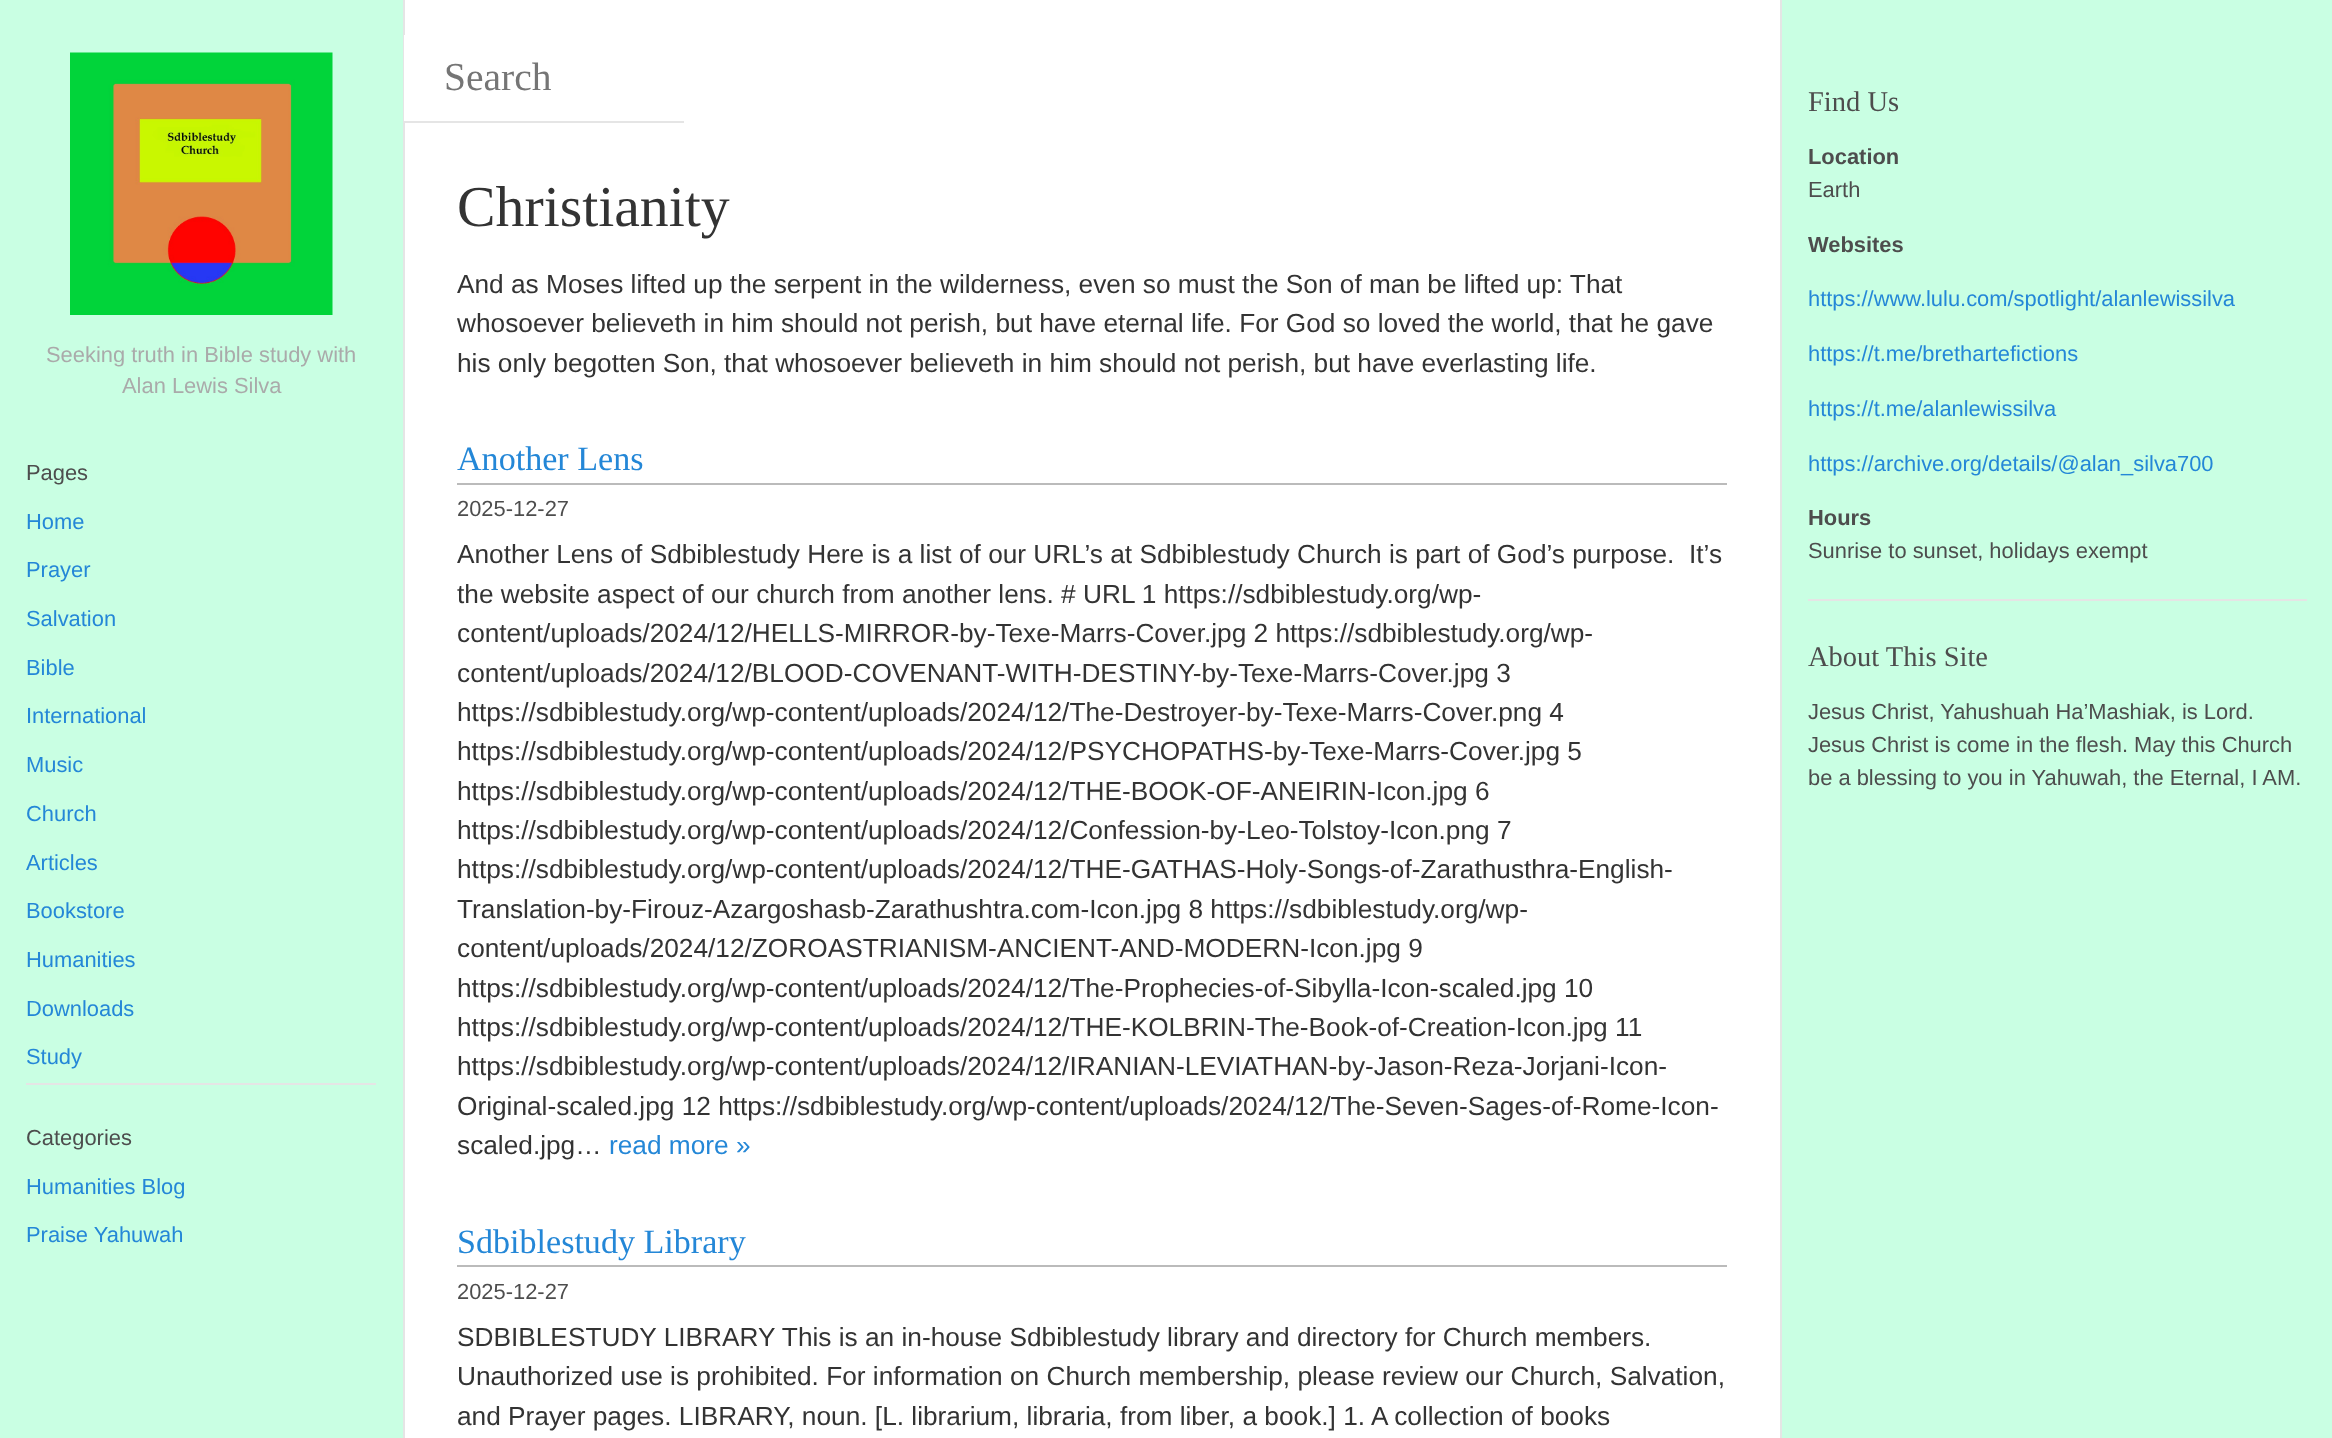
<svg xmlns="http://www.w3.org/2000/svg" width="2332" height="1438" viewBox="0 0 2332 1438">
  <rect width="100%" height="100%" fill="rgb(201,255,227)"/>
  <rect x="405" y="0" width="1375" height="1438" fill="rgb(255,255,255)"/>
  <rect x="1780" y="0" width="2" height="1438" fill="rgb(229,229,229)"/>
  <rect x="403" y="0" width="2" height="1438" fill="rgb(229,229,229)"/>
  <rect x="404" y="35" width="1" height="86" fill="rgb(255,255,255)"/>
  <rect x="404" y="121" width="280" height="2" fill="rgb(229,229,229)"/>
  <text x="444" y="90" font-family="Liberation Serif" font-size="39.5" fill="rgb(117,117,117)">Search</text>
  <text x="26" y="480" font-family="Liberation Sans" font-size="21.9" fill="rgb(77,77,77)">Pages</text>
  <g font-family="Liberation Sans" font-size="21.9" fill="rgb(36,135,215)">
    <text x="26" y="529">Home</text>
    <text x="26" y="577">Prayer</text>
    <text x="26" y="626">Salvation</text>
    <text x="26" y="675">Bible</text>
    <text x="26" y="723">International</text>
    <text x="26" y="772">Music</text>
    <text x="26" y="821">Church</text>
    <text x="26" y="870">Articles</text>
    <text x="26" y="918">Bookstore</text>
    <text x="26" y="967">Humanities</text>
    <text x="26" y="1016">Downloads</text>
    <text x="26" y="1064">Study</text>
  </g>
  <rect x="26" y="1083" width="350" height="2" fill="rgb(229,229,229)"/>
  <text x="26" y="1145" font-family="Liberation Sans" font-size="21.9" fill="rgb(77,77,77)">Categories</text>
  <g font-family="Liberation Sans" font-size="21.9" fill="rgb(36,135,215)">
    <text x="26" y="1194">Humanities Blog</text>
    <text x="26" y="1242">Praise Yahuwah</text>
  </g>
  <text x="457" y="226" font-family="Liberation Serif" font-size="57.75" fill="rgb(51,51,51)">Christianity</text>
  <g font-family="Liberation Sans" font-size="26.25" fill="rgb(51,51,51)">
    <text>
      <tspan x="457" y="293">And as Moses lifted up the serpent in the wilderness, even so must the Son of man be lifted up: That</tspan>
      <tspan x="457" y="332">whosoever believeth in him should not perish, but have eternal life. For God so loved the world, that he gave</tspan>
      <tspan x="457" y="372">his only begotten Son, that whosoever believeth in him should not perish, but have everlasting life.</tspan>
    </text>
  </g>
  <rect x="457" y="483" width="1270" height="2" fill="rgb(187,187,187)"/>
  <text x="457" y="470" font-family="Liberation Serif" font-size="34.1" fill="rgb(36,135,215)">Another Lens</text>
  <text x="457" y="516" font-family="Liberation Sans" font-size="21.9" fill="rgb(77,77,77)">2025-12-27</text>
  <g font-family="Liberation Sans" font-size="26.25" fill="rgb(51,51,51)">
    <text xml:space="preserve"><tspan x="457" y="563">Another Lens of Sdbiblestudy Here is a list of our URL’s at Sdbiblestudy Church is part of God’s purpose.  It’s</tspan><tspan x="457" y="603">the website aspect of our church from another lens. # URL 1 https://sdbiblestudy.org/wp-</tspan><tspan x="457" y="642">content/uploads/2024/12/HELLS-MIRROR-by-Texe-Marrs-Cover.jpg 2 https://sdbiblestudy.org/wp-</tspan><tspan x="457" y="682">content/uploads/2024/12/BLOOD-COVENANT-WITH-DESTINY-by-Texe-Marrs-Cover.jpg 3</tspan><tspan x="457" y="721">https://sdbiblestudy.org/wp-content/uploads/2024/12/The-Destroyer-by-Texe-Marrs-Cover.png 4</tspan><tspan x="457" y="760">https://sdbiblestudy.org/wp-content/uploads/2024/12/PSYCHOPATHS-by-Texe-Marrs-Cover.jpg 5</tspan><tspan x="457" y="800">https://sdbiblestudy.org/wp-content/uploads/2024/12/THE-BOOK-OF-ANEIRIN-Icon.jpg 6</tspan><tspan x="457" y="839">https://sdbiblestudy.org/wp-content/uploads/2024/12/Confession-by-Leo-Tolstoy-Icon.png 7</tspan><tspan x="457" y="878">https://sdbiblestudy.org/wp-content/uploads/2024/12/THE-GATHAS-Holy-Songs-of-Zarathusthra-English-</tspan><tspan x="457" y="918">Translation-by-Firouz-Azargoshasb-Zarathushtra.com-Icon.jpg 8 https://sdbiblestudy.org/wp-</tspan><tspan x="457" y="957">content/uploads/2024/12/ZOROASTRIANISM-ANCIENT-AND-MODERN-Icon.jpg 9</tspan><tspan x="457" y="997">https://sdbiblestudy.org/wp-content/uploads/2024/12/The-Prophecies-of-Sibylla-Icon-scaled.jpg 10</tspan><tspan x="457" y="1036">https://sdbiblestudy.org/wp-content/uploads/2024/12/THE-KOLBRIN-The-Book-of-Creation-Icon.jpg 11</tspan><tspan x="457" y="1075">https://sdbiblestudy.org/wp-content/uploads/2024/12/IRANIAN-LEVIATHAN-by-Jason-Reza-Jorjani-Icon-</tspan><tspan x="457" y="1115">Original-scaled.jpg 12 https://sdbiblestudy.org/wp-content/uploads/2024/12/The-Seven-Sages-of-Rome-Icon-</tspan><tspan x="457" y="1154">scaled.jpg…</tspan></text>
  </g>
  <text x="609" y="1154" font-family="Liberation Sans" font-size="26.25" fill="rgb(36,135,215)">read more »</text>
  <rect x="457" y="1265" width="1270" height="2" fill="rgb(187,187,187)"/>
  <text x="457" y="1253" font-family="Liberation Serif" font-size="34.1" fill="rgb(36,135,215)">Sdbiblestudy Library</text>
  <text x="457" y="1299" font-family="Liberation Sans" font-size="21.9" fill="rgb(77,77,77)">2025-12-27</text>
  <g font-family="Liberation Sans" font-size="26.25" fill="rgb(51,51,51)">
    <text>
      <tspan x="457" y="1346">SDBIBLESTUDY LIBRARY This is an in-house Sdbiblestudy library and directory for Church members.</tspan>
      <tspan x="457" y="1385">Unauthorized use is prohibited. For information on Church membership, please review our Church, Salvation,</tspan>
      <tspan x="457" y="1425">and Prayer pages. LIBRARY, noun. [L. librarium, libraria, from liber, a book.] 1. A collection of books</tspan>
    </text>
  </g>
  <rect x="1808" y="599" width="499" height="2" fill="rgb(229,229,229)"/>
  <text x="1808" y="111" font-family="Liberation Serif" font-size="28.5" fill="rgb(77,77,77)">Find Us</text>
  <text x="1808" y="164" font-family="Liberation Sans" font-size="21.9" font-weight="bold" fill="rgb(77,77,77)">Location</text>
  <text x="1808" y="197" font-family="Liberation Sans" font-size="21.9" fill="rgb(77,77,77)">Earth</text>
  <text x="1808" y="252" font-family="Liberation Sans" font-size="21.9" font-weight="bold" fill="rgb(77,77,77)">Websites</text>
  <g font-family="Liberation Sans" font-size="21.9" fill="rgb(36,135,215)">
    <text x="1808" y="306">https://www.lulu.com/spotlight/alanlewissilva</text>
    <text x="1808" y="361">https://t.me/brethartefictions</text>
    <text x="1808" y="416">https://t.me/alanlewissilva</text>
    <text x="1808" y="471">https://archive.org/details/@alan_silva700</text>
  </g>
  <text x="1808" y="525" font-family="Liberation Sans" font-size="21.9" font-weight="bold" fill="rgb(77,77,77)">Hours</text>
  <text x="1808" y="558" font-family="Liberation Sans" font-size="21.9" fill="rgb(77,77,77)">Sunrise to sunset, holidays exempt</text>
  <text x="1808" y="666" font-family="Liberation Serif" font-size="28.5" fill="rgb(77,77,77)">About This Site</text>
  <g font-family="Liberation Sans" font-size="21.9" fill="rgb(77,77,77)">
    <text>
      <tspan x="1808" y="719">Jesus Christ, Yahushuah Ha’Mashiak, is Lord.</tspan>
      <tspan x="1808" y="752">Jesus Christ is come in the flesh. May this Church</tspan>
      <tspan x="1808" y="785">be a blessing to you in Yahuwah, the Eternal, I AM.</tspan>
    </text>
  </g>
  <image x="70" y="52" width="263" height="263" href="pic1.png"/>
  <g font-family="Liberation Sans" font-size="21.9" fill="rgb(170,170,170)">
    <text x="46" y="362">Seeking truth in Bible study with</text>
    <text x="122" y="393">Alan Lewis Silva</text>
  </g>
</svg>
